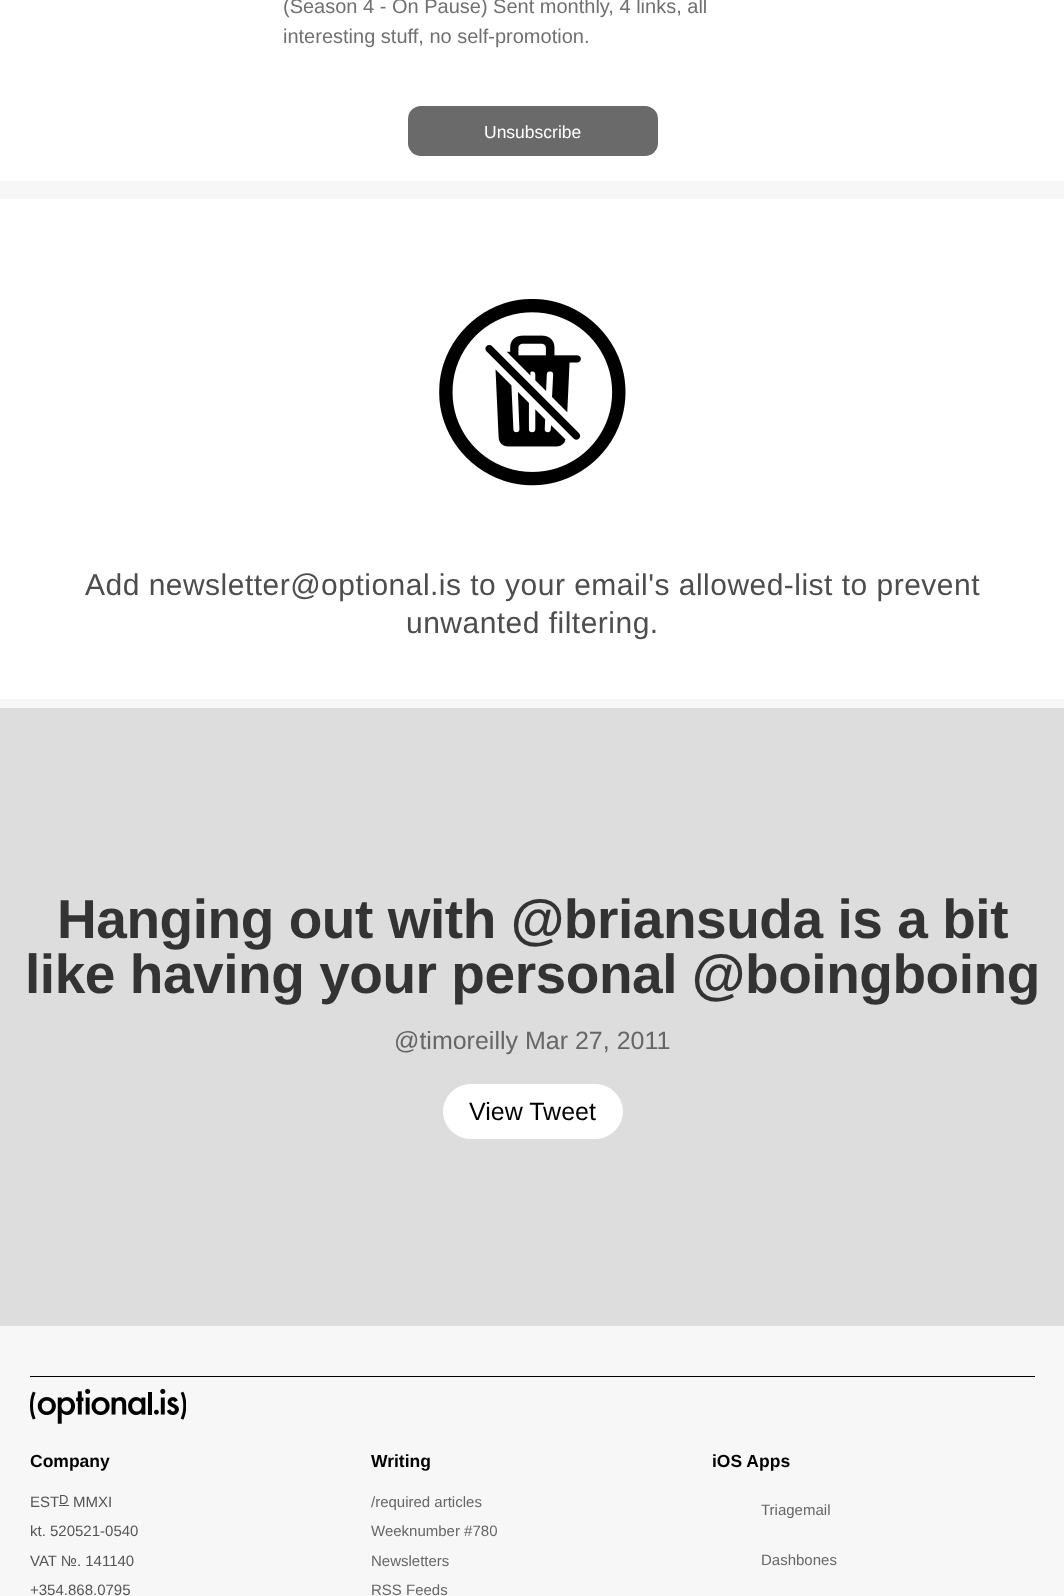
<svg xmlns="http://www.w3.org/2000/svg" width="1064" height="1596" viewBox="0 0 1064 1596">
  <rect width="100%" height="100%" fill="rgb(247,247,247)"/>
  <rect x="0" y="0" width="1064" height="181" fill="rgb(255,255,255)"/>
  <g font-family="Liberation Sans" font-size="20" fill="rgb(112,112,112)">
    <text>
      <tspan x="283" y="13">(Season 4 - On Pause) Sent monthly, 4 links, all</tspan>
      <tspan x="283" y="43">interesting stuff, no self-promotion.</tspan>
    </text>
  </g>
  <rect x="408" y="106" width="250" height="50" rx="13" fill="rgb(106,106,106)"/>
  <text x="484" y="138" font-family="Liberation Sans" font-size="17.5" fill="rgb(255,255,255)">Unsubscribe</text>
  <rect x="0" y="199" width="1064" height="500" fill="rgb(255,255,255)"/>
  <image x="439" y="299" width="187" height="187" href="pic1.png"/>
  <g font-family="Liberation Sans" font-size="30" letter-spacing="0.48" fill="rgb(77,77,77)">
    <text x="85" y="595">Add newsletter@optional.is to your email's allowed-list to prevent</text>
    <text x="406" y="633">unwanted filtering.</text>
  </g>
  <rect x="0" y="708" width="1064" height="618" fill="rgb(221,221,221)"/>
  <g font-family="Liberation Sans" font-size="55" font-weight="bold" letter-spacing="-0.45" fill="rgb(51,51,51)">
    <text x="57" y="938">Hanging out with @briansuda is a bit</text>
    <text x="25" y="993">like having your personal @boingboing</text>
  </g>
  <text x="394" y="1049" font-family="Liberation Sans" font-size="25" fill="rgb(102,102,102)">@timoreilly Mar 27, 2011</text>
  <rect x="443.5" y="1084.5" width="179" height="54" rx="27" fill="rgb(255,255,255)" stroke="rgb(255,255,255)"/>
  <text x="469" y="1120" font-family="Liberation Sans" font-size="25" fill="rgb(0,0,0)">View Tweet</text>
  <rect x="30" y="1376" width="1005" height="1" fill="rgb(0,0,0)"/>
  <image x="30" y="1388" width="156" height="36" href="pic2.png"/>
  <text x="30" y="1467" font-family="Liberation Sans" font-size="17.5" font-weight="bold" fill="rgb(0,0,0)">Company</text>
  <text x="30" y="1507" font-family="Liberation Sans" font-size="15" fill="rgb(85,85,85)">EST</text>
  <text x="59" y="1504" font-family="Liberation Sans" font-size="13" fill="rgb(85,85,85)">D</text>
  <rect x="59" y="1505" width="10" height="1" fill="rgb(85,85,85)"/>
  <g font-family="Liberation Sans" font-size="15" fill="rgb(85,85,85)">
    <text x="73" y="1507">MMXI</text>
    <text x="30" y="1536">kt. 520521-0540</text>
    <text>
      <tspan x="30" y="1566">VAT №. 141140</tspan>
      <tspan x="30" y="1595">+354.868.0795</tspan>
    </text>
  </g>
  <text x="371" y="1467" font-family="Liberation Sans" font-size="17.5" font-weight="bold" fill="rgb(0,0,0)">Writing</text>
  <g font-family="Liberation Sans" font-size="15" fill="rgb(102,102,102)">
    <text>
      <tspan x="371" y="1507">/required articles</tspan>
      <tspan x="371" y="1536">Weeknumber #780</tspan>
    </text>
    <text>
      <tspan x="371" y="1566">Newsletters</tspan>
      <tspan x="371" y="1595">RSS Feeds</tspan>
    </text>
  </g>
  <text x="712" y="1467" font-family="Liberation Sans" font-size="17.5" font-weight="bold" fill="rgb(0,0,0)">iOS Apps</text>
  <g font-family="Liberation Sans" font-size="15" fill="rgb(102,102,102)">
    <text x="761" y="1515">Triagemail</text>
    <text x="761" y="1565">Dashbones</text>
  </g>
</svg>
